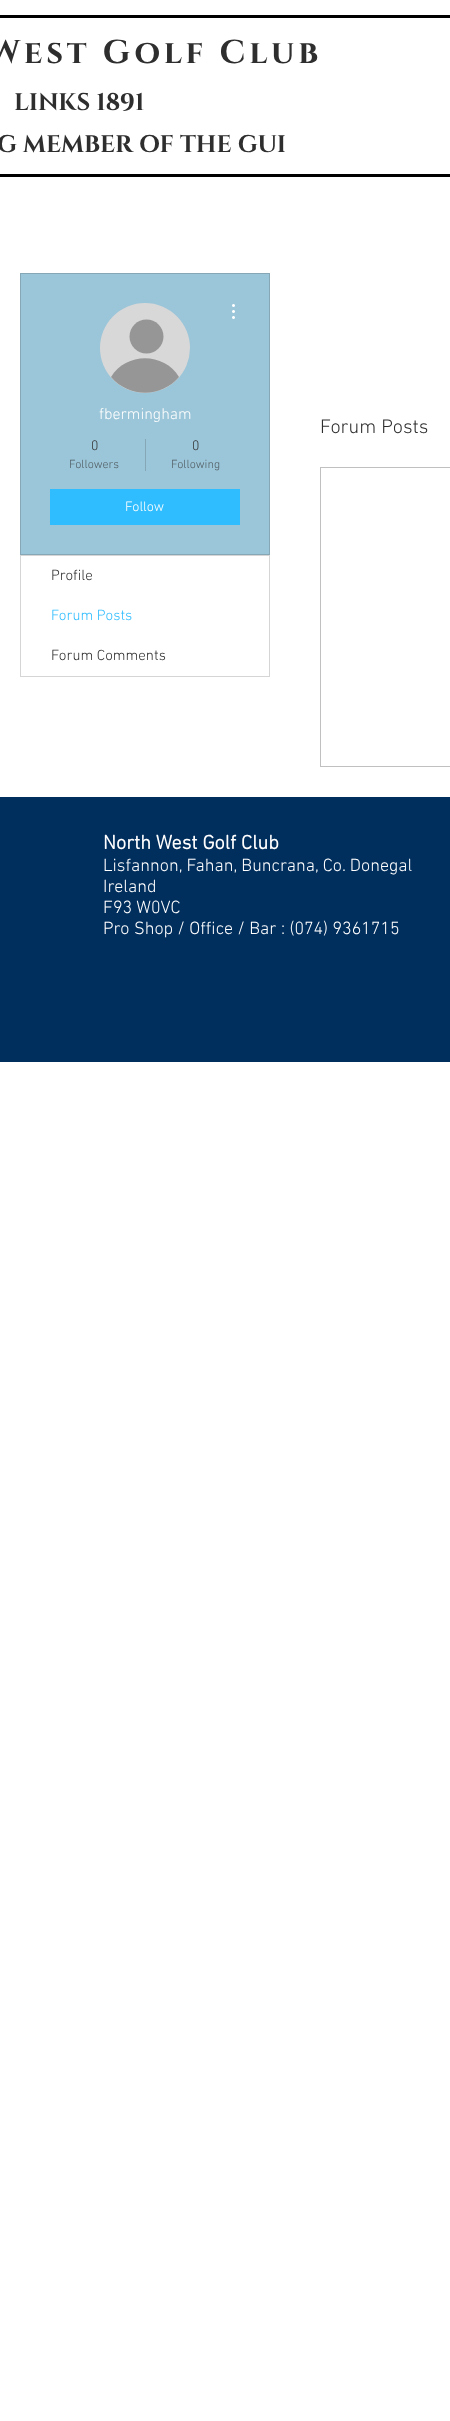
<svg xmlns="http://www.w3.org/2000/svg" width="450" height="2421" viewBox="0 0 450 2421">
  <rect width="100%" height="100%" fill="rgb(255,255,255)"/>
  <rect x="0" y="15" width="450" height="3" fill="rgb(0,0,0)"/>
  <text x="-12" y="63" font-family="Cinzel" font-size="33" font-weight="bold" letter-spacing="4" fill="rgb(47,46,46)">West Golf Club</text>
  <g font-family="Cinzel" font-size="24" font-weight="bold" fill="rgb(47,46,46)">
    <text x="14" y="110">LINKS 1891</text>
    <text x="-3" y="152">G MEMBER OF THE GUI</text>
  </g>
  <rect x="0" y="174" width="450" height="3" fill="rgb(0,0,0)"/>
  <rect x="20.5" y="273.5" width="249" height="281" fill="rgb(155,197,216)" stroke="rgb(133,167,182)"/>
  <circle cx="145" cy="348" r="45" fill="rgb(216,216,216)"/>
  <circle cx="146.5" cy="336.5" r="17" fill="rgb(150,150,150)"/>
  <path d="M179 377C161 398 129 398 111 377C126 352 164 352 179 377Z" fill="rgb(150,150,150)"/>
  <image x="232" y="304" width="3" height="15" href="pic1.png"/>
  <text x="99" y="419" font-family="'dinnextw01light'" font-size="16" font-weight="300" fill="rgb(255,255,255)">fbermingham</text>
  <text x="91" y="450" font-family="'dinnextw01light'" font-size="14" font-weight="300" fill="rgb(47,46,46)">0</text>
  <text x="69" y="468" font-family="'dinnextw01light'" font-size="12" font-weight="300" fill="rgb(79,91,97)">Followers</text>
  <rect x="145" y="439" width="1" height="32" fill="rgb(133,167,182)"/>
  <text x="192" y="450" font-family="'dinnextw01light'" font-size="14" font-weight="300" fill="rgb(47,46,46)">0</text>
  <text x="171" y="468" font-family="'dinnextw01light'" font-size="12" font-weight="300" fill="rgb(79,91,97)">Following</text>
  <rect x="50" y="489" width="190" height="36" fill="rgb(48,189,255)"/>
  <text x="125" y="511" font-family="'dinnextw01light'" font-size="14" font-weight="300" fill="rgb(255,255,255)">Follow</text>
  <rect x="20.5" y="555.5" width="249" height="121" fill="none" stroke="rgb(213,213,213)"/>
  <text x="51" y="580" font-family="'dinnextw01light'" font-size="15" font-weight="300" fill="rgb(47,46,46)">Profile</text>
  <text x="51" y="620" font-family="'dinnextw01light'" font-size="15" font-weight="300" fill="rgb(48,189,255)">Forum Posts</text>
  <text x="51" y="660" font-family="'dinnextw01light'" font-size="15" font-weight="300" fill="rgb(47,46,46)">Forum Comments</text>
  <text x="320" y="433" font-family="'dinnextw01light'" font-size="20" font-weight="300" fill="rgb(47,46,46)">Forum Posts</text>
  <rect x="320.5" y="467.5" width="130" height="299" fill="none" stroke="rgb(193,192,192)"/>
  <rect x="0" y="797" width="450" height="265" fill="rgb(0,46,93)"/>
  <text x="103" y="849" font-family="'dinnextw01light'" font-size="20" font-weight="bold" fill="rgb(255,255,255)">North West Golf Club</text>
  <g font-family="'dinnextw01light'" font-size="18" font-weight="300" fill="rgb(255,255,255)">
    <text>
      <tspan x="103" y="871">Lisfannon, Fahan, Buncrana, Co. Donegal</tspan>
      <tspan x="103" y="892">Ireland</tspan>
      <tspan x="103" y="913">F93 W0VC</tspan>
      <tspan x="103" y="934">Pro Shop / Office / Bar : (074) 9361715</tspan>
    </text>
  </g>
</svg>
